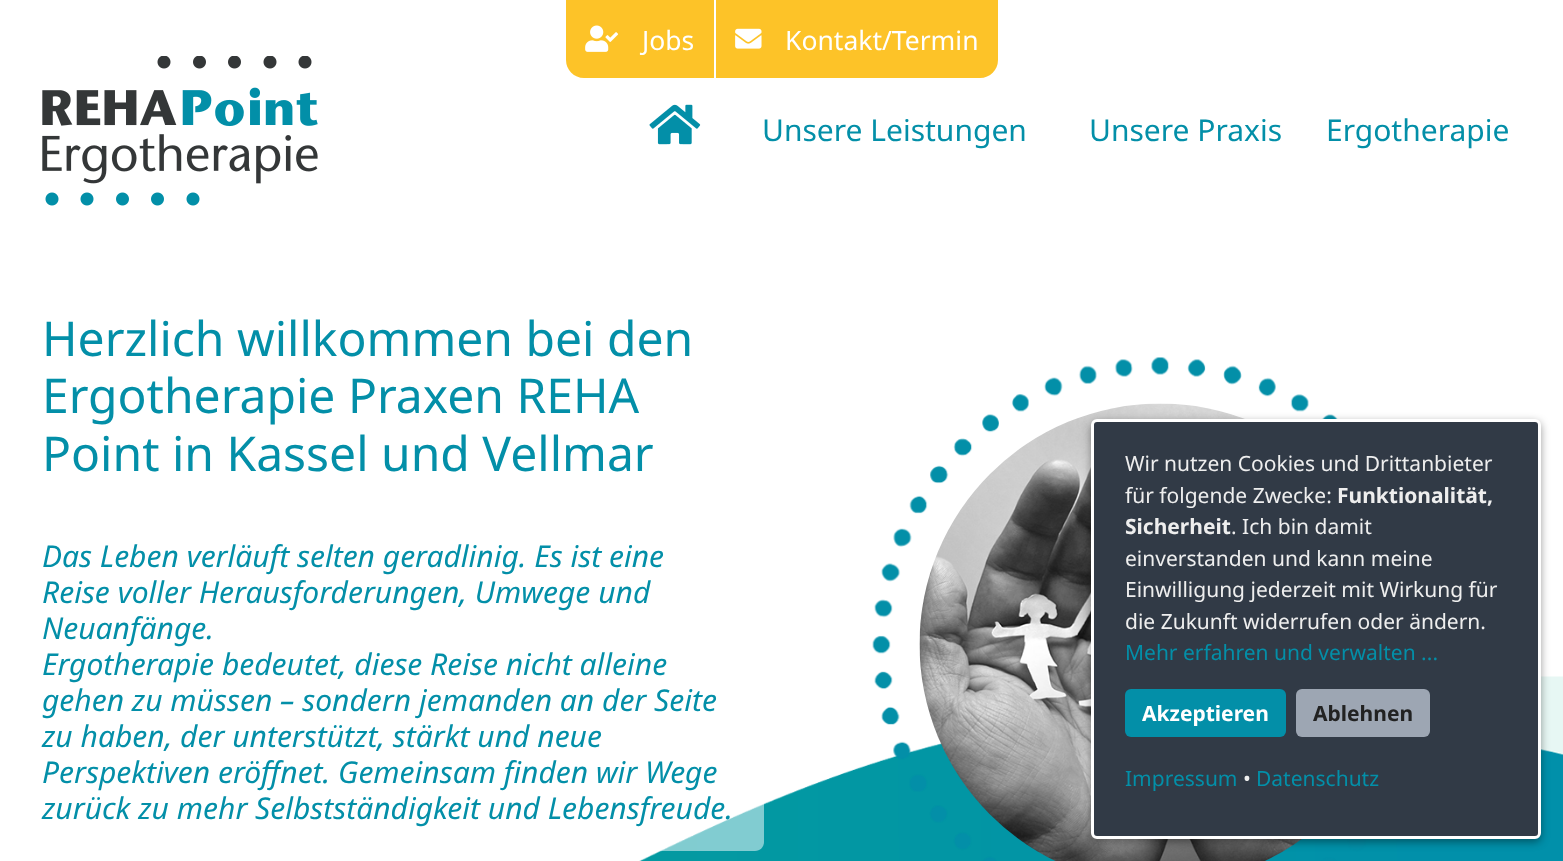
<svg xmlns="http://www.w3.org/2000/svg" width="1563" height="861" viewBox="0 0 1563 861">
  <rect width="100%" height="100%" fill="rgb(255,255,255)"/>
  <path d="M566 0H714V78H584C574 78 566 70 566 60Z" fill="rgb(253,195,40)"/>
  <image x="585" y="25" width="34" height="27" href="pic1.png"/>
  <text x="642" y="50" font-family="Noto Sans" font-size="26.5" fill="rgb(255,255,255)">Jobs</text>
  <path d="M716 0H998V60C998 70 990 78 980 78H716Z" fill="rgb(253,195,40)"/>
  <image x="735" y="28" width="27" height="21" href="pic2.png"/>
  <text x="785" y="50" font-family="Noto Sans" font-size="26.5" fill="rgb(255,255,255)">Kontakt/Termin</text>
  <image x="42" y="56" width="276" height="150" href="pic3.png"/>
  <image x="649" y="104" width="52" height="41" href="pic4.png"/>
  <g font-family="Noto Sans" font-size="30" fill="rgb(3,143,168)">
    <text x="762" y="141">Unsere Leistungen</text>
    <text x="1089" y="141">Unsere Praxis</text>
    <text x="1326" y="141">Ergotherapie</text>
  </g>
  <image x="639" y="676" width="924" height="185" href="pic5.png"/>
  <g font-family="Noto Sans" font-size="48" fill="rgb(3,143,168)">
    <text>
      <tspan x="42" y="356">Herzlich willkommen bei den</tspan>
      <tspan x="42" y="413">Ergotherapie Praxen REHA</tspan>
      <tspan x="42" y="471">Point in Kassel und Vellmar</tspan>
    </text>
  </g>
  <path d="M42 539H755C760 539 764 543 764 548V842C764 847 760 851 755 851H42Z" fill="rgba(255,255,255,0.5)"/>
  <g font-family="Noto Sans" font-size="30" font-style="italic" fill="rgb(3,143,168)">
    <text>
      <tspan x="42" y="567">Das Leben verläuft selten geradlinig. Es ist eine</tspan>
      <tspan x="42" y="603">Reise voller Herausforderungen, Umwege und</tspan>
      <tspan x="42" y="639">Neuanfänge.</tspan>
      <tspan x="42" y="675">Ergotherapie bedeutet, diese Reise nicht alleine</tspan>
      <tspan x="42" y="711">gehen zu müssen – sondern jemanden an der Seite</tspan>
      <tspan x="42" y="747">zu haben, der unterstützt, stärkt und neue</tspan>
      <tspan x="42" y="783">Perspektiven eröffnet. Gemeinsam finden wir Wege</tspan>
      <tspan x="42" y="819">zurück zu mehr Selbstständigkeit und Lebensfreude.</tspan>
    </text>
  </g>
  <image x="872" y="357" width="494" height="504" href="pic6.png"/>
  <image x="919" y="403" width="383" height="458" href="pic7.png"/>
  <rect x="1091" y="422" width="450" height="420" rx="6" fill="rgba(0,0,0,0.4)" filter="blur(4.5px)"/>
  <rect x="1092.5" y="420.5" width="447" height="417" rx="4.5" fill="rgb(49,58,70)" stroke="rgb(255,255,255)" stroke-width="3"/>
  <g font-family="Noto Sans" font-size="21" fill="rgb(238,238,238)">
    <text>
      <tspan x="1125" y="471">Wir nutzen Cookies und Drittanbieter</tspan>
      <tspan x="1125" y="503">für folgende Zwecke:</tspan>
    </text>
  </g>
  <g font-family="Noto Sans" font-size="21" font-weight="bold" fill="rgb(238,238,238)">
    <text x="1337" y="503">Funktionalität,</text>
    <text x="1125" y="534">Sicherheit</text>
  </g>
  <g font-family="Noto Sans" font-size="21" fill="rgb(238,238,238)">
    <text x="1231" y="534">. Ich bin damit</text>
    <text>
      <tspan x="1125" y="566">einverstanden und kann meine</tspan>
      <tspan x="1125" y="597">Einwilligung jederzeit mit Wirkung für</tspan>
      <tspan x="1125" y="629">die Zukunft widerrufen oder ändern.</tspan>
    </text>
  </g>
  <text x="1125" y="660" font-family="Noto Sans" font-size="21" fill="rgb(3,143,168)">Mehr erfahren und verwalten ...</text>
  <rect x="1125" y="689" width="161" height="48" rx="6" fill="rgb(3,143,168)"/>
  <text x="1142" y="721" font-family="Noto Sans" font-size="21" font-weight="bold" fill="rgb(255,255,255)">Akzeptieren</text>
  <rect x="1296" y="689" width="134" height="48" rx="6" fill="rgb(157,166,179)"/>
  <text x="1313" y="721" font-family="Noto Sans" font-size="21" font-weight="bold" fill="rgb(34,34,34)">Ablehnen</text>
  <text x="1125" y="786" font-family="Noto Sans" font-size="21" fill="rgb(3,143,168)">Impressum</text>
  <text x="1243" y="786" font-family="Noto Sans" font-size="21" fill="rgb(238,238,238)">•</text>
  <text x="1256" y="786" font-family="Noto Sans" font-size="21" fill="rgb(3,143,168)">Datenschutz</text>
</svg>
